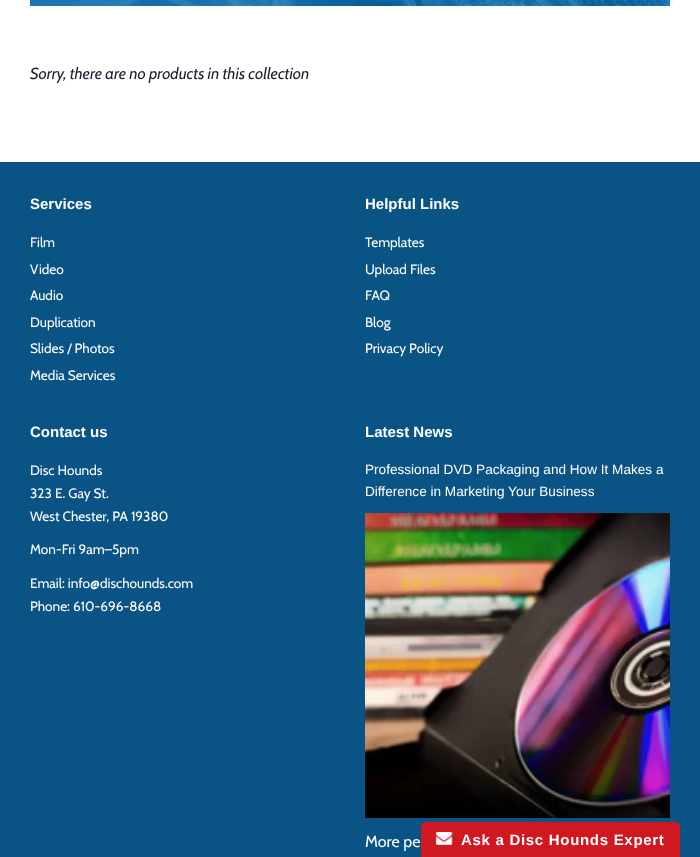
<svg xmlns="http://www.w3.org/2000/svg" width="700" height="857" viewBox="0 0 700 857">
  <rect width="100%" height="100%" fill="rgb(255,255,255)"/>
  <image x="30" y="0" width="640" height="6" href="pic1.png"/>
  <text x="30" y="79" font-family="Cabin" font-size="16" font-style="italic" fill="rgb(27,30,47)">Sorry, there are no products in this collection</text>
  <rect x="0" y="162" width="700" height="695" fill="rgb(10,83,133)"/>
  <text x="30" y="209" font-family="Liberation Sans" font-size="15" font-weight="bold" fill="rgb(255,255,255)">Services</text>
  <g font-family="Cabin" font-size="13.6" fill="rgb(255,255,255)">
    <text>
      <tspan x="30" y="247">Film</tspan>
      <tspan x="30" y="274">Video</tspan>
      <tspan x="30" y="300">Audio</tspan>
      <tspan x="30" y="327">Duplication</tspan>
      <tspan x="30" y="353">Slides / Photos</tspan>
      <tspan x="30" y="380">Media Services</tspan>
    </text>
  </g>
  <text x="365" y="209" font-family="Liberation Sans" font-size="15" font-weight="bold" fill="rgb(255,255,255)">Helpful Links</text>
  <g font-family="Cabin" font-size="13.6" fill="rgb(255,255,255)">
    <text>
      <tspan x="365" y="247">Templates</tspan>
      <tspan x="365" y="274">Upload Files</tspan>
      <tspan x="365" y="300">FAQ</tspan>
      <tspan x="365" y="327">Blog</tspan>
      <tspan x="365" y="353">Privacy Policy</tspan>
    </text>
  </g>
  <text x="30" y="437" font-family="Liberation Sans" font-size="15" font-weight="bold" fill="rgb(255,255,255)">Contact us</text>
  <g font-family="Cabin" font-size="13.6" fill="rgb(255,255,255)">
    <text>
      <tspan x="30" y="475">Disc Hounds</tspan>
      <tspan x="30" y="498">323 E. Gay St.</tspan>
      <tspan x="30" y="521">West Chester, PA 19380</tspan>
    </text>
    <text x="30" y="554">Mon-Fri 9am–5pm</text>
    <text>
      <tspan x="30" y="588">Email: info@dischounds.com</tspan>
      <tspan x="30" y="611">Phone: 610-696-8668</tspan>
    </text>
  </g>
  <text x="365" y="437" font-family="Liberation Sans" font-size="15" font-weight="bold" fill="rgb(255,255,255)">Latest News</text>
  <g font-family="Liberation Sans" font-size="13.6" fill="rgb(255,255,255)">
    <text>
      <tspan x="365" y="474">Professional DVD Packaging and How It Makes a</tspan>
      <tspan x="365" y="496">Difference in Marketing Your Business</tspan>
    </text>
  </g>
  <image x="365" y="513" width="305" height="305" href="pic2.png"/>
  <text x="365" y="847" font-family="Cabin" font-size="16" fill="rgb(255,255,255)">More pe</text>
  <path d="M426 822H675C678 822 680 824 680 827V857H421V827C421 824 423 822 426 822Z" fill="rgb(207,24,31)"/>
  <image x="435" y="832" width="18" height="13" href="pic3.png"/>
  <text x="461" y="845" font-family="Liberation Sans" font-size="15" font-weight="bold" letter-spacing="0.7" fill="rgb(255,255,255)">Ask a Disc Hounds Expert</text>
</svg>
